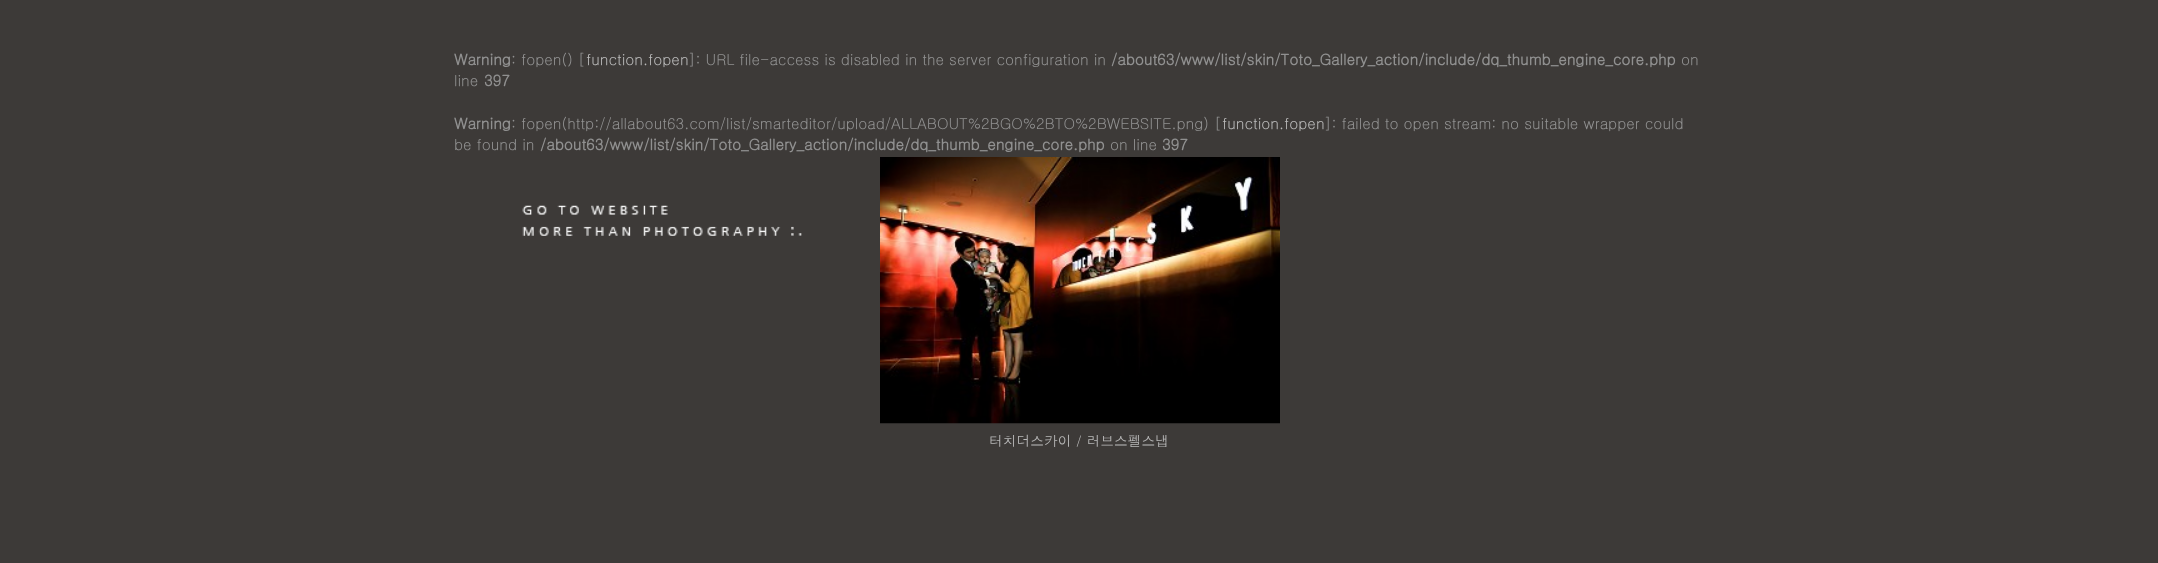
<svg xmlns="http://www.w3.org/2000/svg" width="2158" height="563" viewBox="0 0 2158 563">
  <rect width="100%" height="100%" fill="rgb(61,58,56)"/>
  <text x="454" y="65" font-family="Gulim" font-size="15" font-weight="bold" fill="rgb(144,144,144)">Warning</text>
  <text x="511" y="65" font-family="Gulim" font-size="15" fill="rgb(144,144,144)">: fopen() [</text>
  <text x="586" y="65" font-family="Gulim" font-size="15" fill="rgb(185,185,185)">function.fopen</text>
  <text x="688" y="65" font-family="Gulim" font-size="15" fill="rgb(144,144,144)">]: URL file-access is disabled in the server configuration in</text>
  <text x="1111" y="65" font-family="Gulim" font-size="15" font-weight="bold" fill="rgb(144,144,144)">/about63/www/list/skin/Toto_Gallery_action/include/dq_thumb_engine_core.php</text>
  <g font-family="Gulim" font-size="15" fill="rgb(144,144,144)">
    <text x="1681" y="65">on</text>
    <text x="454" y="86">line</text>
  </g>
  <g font-family="Gulim" font-size="15" font-weight="bold" fill="rgb(144,144,144)">
    <text x="484" y="86">397</text>
    <text x="454" y="129">Warning</text>
  </g>
  <text x="511" y="129" font-family="Gulim" font-size="15" fill="rgb(144,144,144)">: fopen(http://allabout63.com/list/smarteditor/upload/ALLABOUT%2BGO%2BTO%2BWEBSITE.png) [</text>
  <text x="1222" y="129" font-family="Gulim" font-size="15" fill="rgb(185,185,185)">function.fopen</text>
  <g font-family="Gulim" font-size="15" fill="rgb(144,144,144)">
    <text x="1324" y="129">]: failed to open stream: no suitable wrapper could</text>
    <text x="454" y="150">be found in</text>
  </g>
  <text x="540" y="150" font-family="Gulim" font-size="15" font-weight="bold" fill="rgb(144,144,144)">/about63/www/list/skin/Toto_Gallery_action/include/dq_thumb_engine_core.php</text>
  <text x="1110" y="150" font-family="Gulim" font-size="15" fill="rgb(144,144,144)">on line</text>
  <text x="1162" y="150" font-family="Gulim" font-size="15" font-weight="bold" fill="rgb(144,144,144)">397</text>
  <image x="522" y="200" width="358" height="49" href="pic1.png"/>
  <image x="880" y="157" width="400" height="267" href="pic2.png"/>
  <text x="989" y="446" font-family="Dotum" font-size="13.75" fill="rgb(185,185,185)">터치더스카이 / 러브스펠스냅</text>
</svg>
